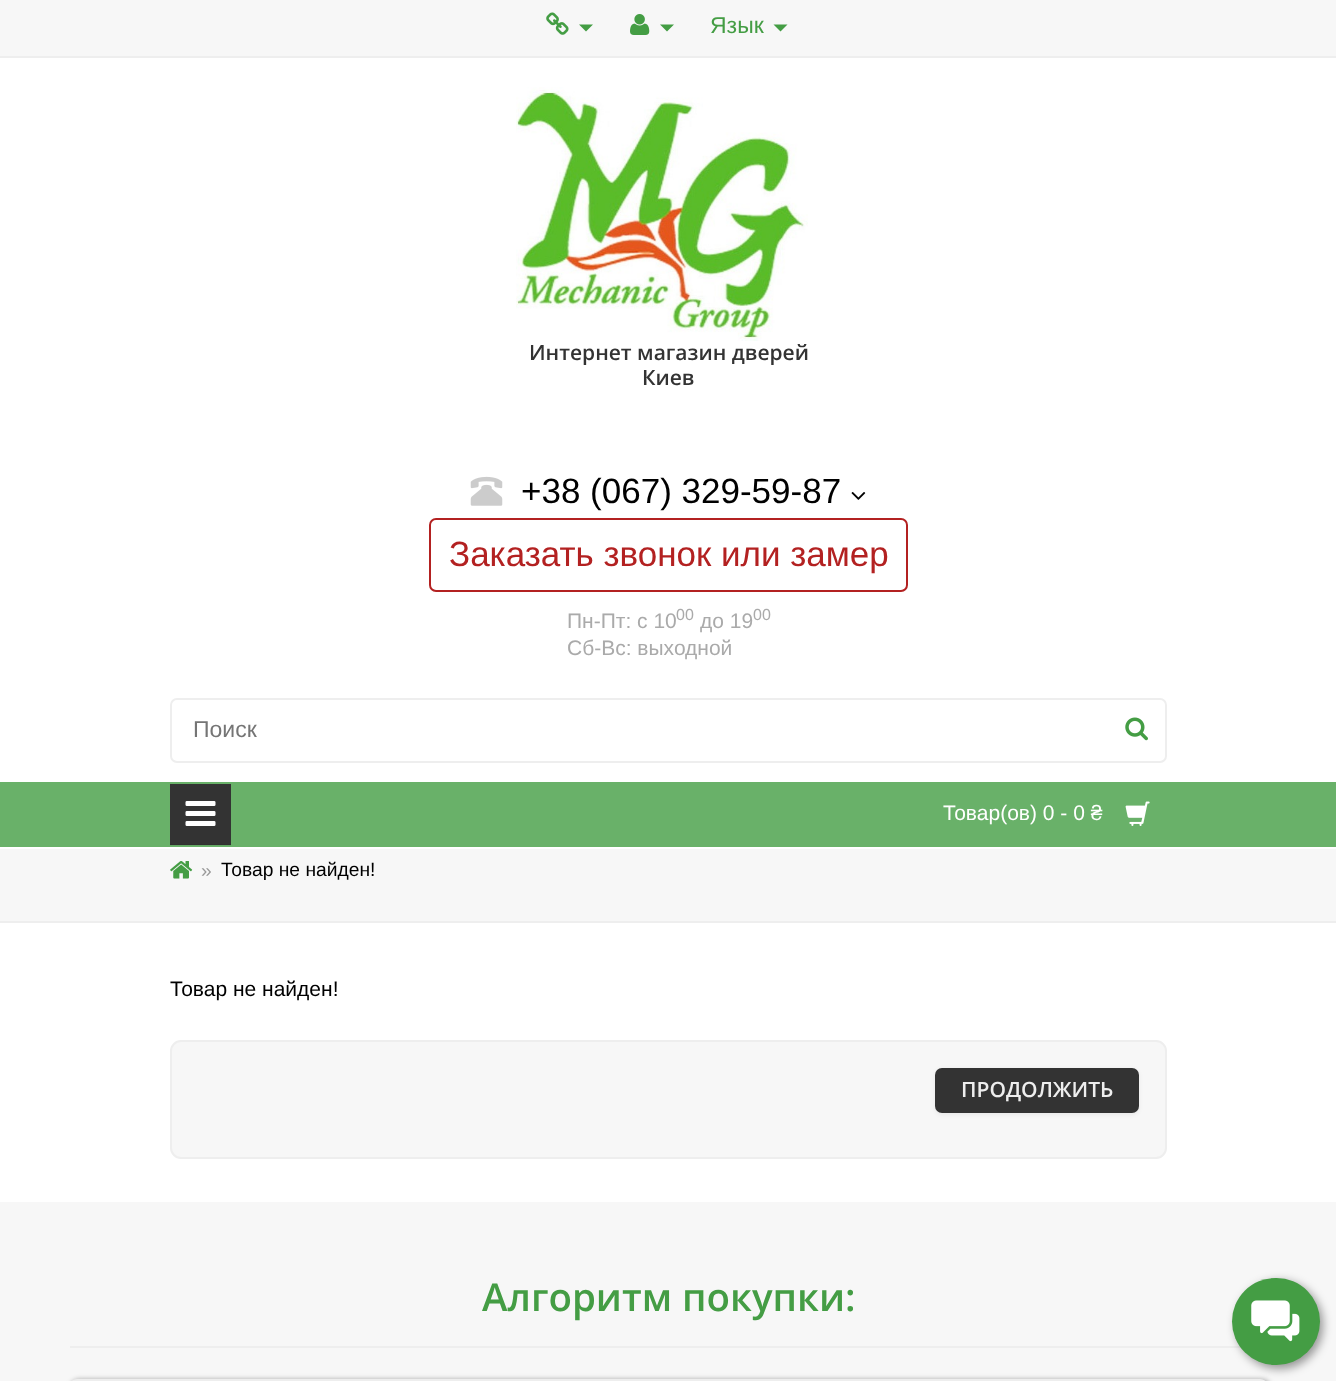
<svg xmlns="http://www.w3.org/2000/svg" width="1336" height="1381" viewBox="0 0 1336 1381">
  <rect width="100%" height="100%" fill="rgb(255,255,255)"/>
  <rect x="0" y="0" width="1336" height="56" fill="rgb(247,247,247)"/>
  <rect x="0" y="56" width="1336" height="2" fill="rgb(238,238,238)"/>
  <image x="546" y="12" width="23" height="23" href="pic1.png"/>
  <path d="M579 24.5H593L586 31.5Z" fill="rgb(68,157,68)"/>
  <image x="630" y="14" width="20" height="21" href="pic2.png"/>
  <path d="M660 24.5H674L667 31.5Z" fill="rgb(68,157,68)"/>
  <text x="710" y="33" font-family="Liberation Sans" font-size="23" fill="rgb(68,157,68)">Язык</text>
  <path d="M773.5 24.5H787.5L780.5 31.5Z" fill="rgb(68,157,68)"/>
  <image x="516" y="87" width="292" height="254" href="pic3.png"/>
  <g font-family="Open Sans" font-size="21" font-weight="600" fill="rgb(51,51,51)">
    <text x="529" y="360">Интернет магазин дверей</text>
    <text x="642" y="385">Киев</text>
  </g>
  <image x="470" y="476" width="33" height="30" href="pic4.png"/>
  <text x="521" y="503" font-family="Liberation Sans" font-size="35" fill="rgb(0,0,0)">+38 (067) 329-59-87</text>
  <image x="851" y="492" width="15" height="8" href="pic5.png"/>
  <rect x="430" y="519" width="477" height="72" rx="6" fill="none" stroke="rgb(179,33,33)" stroke-width="2"/>
  <text x="449" y="566" font-family="Liberation Sans" font-size="35" fill="rgb(179,33,33)">Заказать звонок или замер</text>
  <text x="567" y="628" font-family="Liberation Sans" font-size="21" fill="rgb(170,170,170)">Пн-Пт: с 10</text>
  <text x="676" y="620" font-family="Liberation Sans" font-size="16" fill="rgb(170,170,170)">00</text>
  <text x="700" y="628" font-family="Liberation Sans" font-size="21" fill="rgb(170,170,170)">до 19</text>
  <text x="753" y="620" font-family="Liberation Sans" font-size="16" fill="rgb(170,170,170)">00</text>
  <text x="567" y="655" font-family="Liberation Sans" font-size="21" fill="rgb(170,170,170)">Сб-Вс: выходной</text>
  <rect x="171" y="699" width="995" height="63" rx="6" fill="none" stroke="rgb(238,238,238)" stroke-width="2"/>
  <text x="193" y="737" font-family="Liberation Sans" font-size="23" fill="rgb(117,117,117)">Поиск</text>
  <image x="1125" y="717" width="23" height="24" href="pic6.png"/>
  <rect x="0" y="782" width="1336" height="65" fill="rgb(105,177,105)"/>
  <rect x="170" y="845" width="61" height="1" fill="rgb(100,168,100)"/>
  <rect x="170" y="784" width="61" height="60" fill="rgb(51,51,51)"/>
  <rect x="170" y="844" width="61" height="1" fill="rgb(48,48,48)"/>
  <image x="185" y="801" width="31" height="25" href="pic7.png"/>
  <text x="943" y="820" font-family="Liberation Sans" font-size="21" fill="rgb(255,255,255)">Товар(ов) 0 - 0 ₴</text>
  <image x="1125" y="801" width="25" height="25" href="pic8.png"/>
  <rect x="0" y="849" width="1336" height="72" fill="rgb(247,247,247)"/>
  <rect x="0" y="921" width="1336" height="2" fill="rgb(238,238,238)"/>
  <image x="170" y="861" width="23" height="18" href="pic9.png"/>
  <text x="201" y="877" font-family="Liberation Sans" font-size="19.25" fill="rgb(153,153,153)">»</text>
  <text x="221" y="876" font-family="Liberation Sans" font-size="19.25" fill="rgb(0,0,0)">Товар не найден!</text>
  <text x="170" y="996" font-family="Liberation Sans" font-size="21" fill="rgb(0,0,0)">Товар не найден!</text>
  <rect x="171" y="1041" width="995" height="117" rx="10" fill="rgb(247,247,247)" stroke="rgb(238,238,238)" stroke-width="2"/>
  <rect x="935" y="1069" width="204" height="46" rx="7" fill="rgba(0,0,0,0.06)" filter="blur(2px)"/>
  <rect x="935" y="1068" width="204" height="45" rx="7" fill="rgb(51,51,51)"/>
  <text x="961" y="1097" font-family="Open Sans" font-size="21" font-weight="600" fill="rgb(238,238,238)">ПРОДОЛЖИТЬ</text>
  <rect x="0" y="1202" width="1336" height="179" fill="rgb(247,247,247)"/>
  <rect x="70" y="1346" width="1171" height="2" fill="rgb(238,238,238)"/>
  <text x="482" y="1311" font-family="Open Sans" font-size="38.5" font-weight="600" fill="rgb(68,157,68)">Алгоритм покупки:</text>
  <rect x="70" y="1379" width="1201" height="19" rx="9" fill="rgba(0,0,0,0.3)" filter="blur(2.5px)"/>
  <rect x="71" y="1380" width="1195" height="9" rx="6" fill="none" stroke="rgb(238,238,238)" stroke-width="2"/>
  <rect x="1236" y="1281" width="87" height="88" rx="43.5" fill="rgba(0,0,0,0.4)" filter="blur(5px)"/>
  <rect x="1232" y="1278" width="88" height="87" rx="43.5" fill="rgb(68,157,68)"/>
  <image x="1251" y="1300" width="49" height="42" href="pic10.png"/>
</svg>
